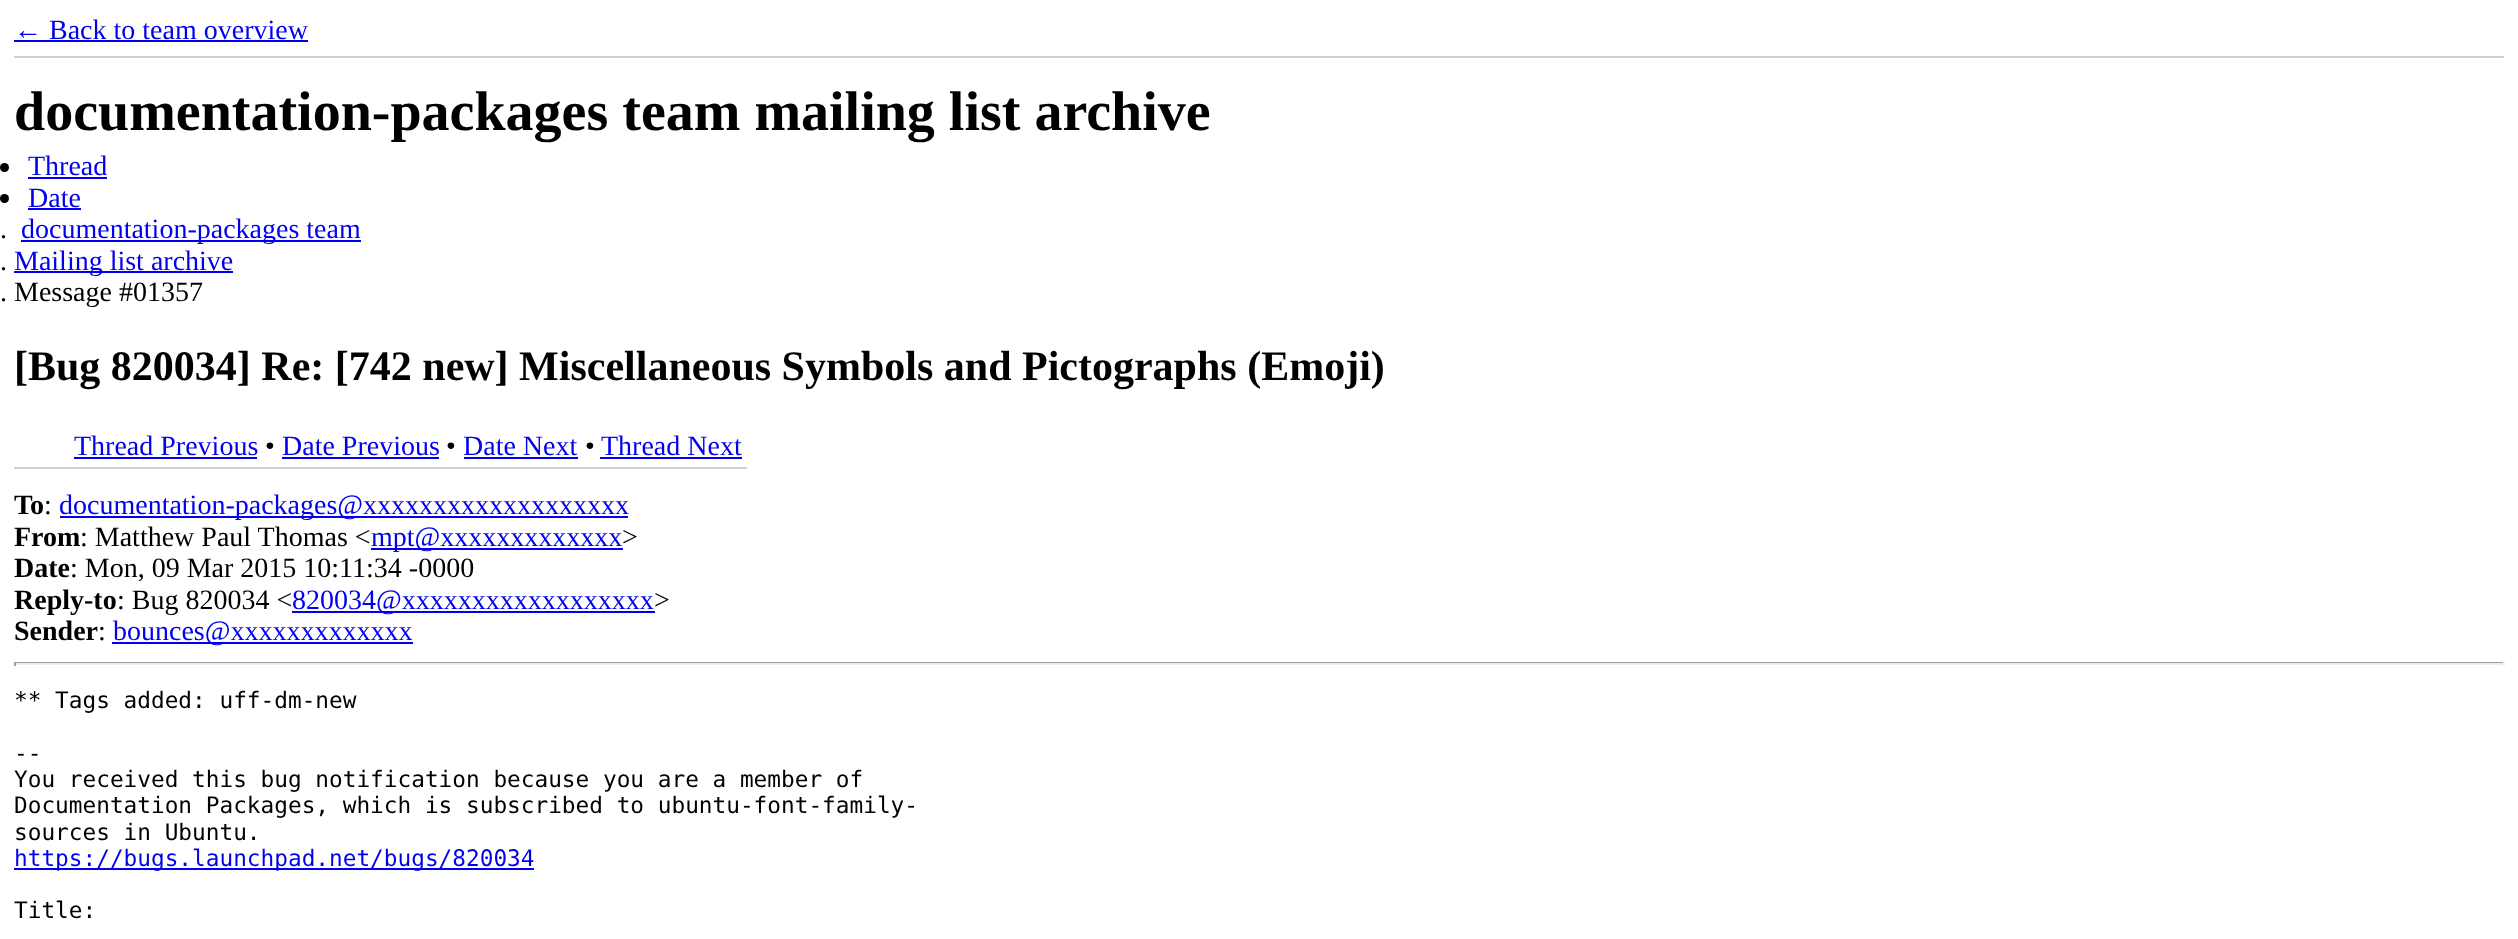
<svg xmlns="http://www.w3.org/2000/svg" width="2518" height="939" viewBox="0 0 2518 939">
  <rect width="100%" height="100%" fill="rgb(255,255,255)"/>
  <rect x="14" y="56" width="2490" height="2" fill="rgb(210,210,210)"/>
  <text x="14" y="39" font-family="Liberation Serif" font-size="28" fill="rgb(0,0,238)">← Back to team overview</text>
  <rect x="14" y="40" width="294" height="2" fill="rgb(0,0,238)"/>
  <text x="14" y="130" font-family="Liberation Serif" font-size="56" font-weight="bold" fill="rgb(0,0,0)">documentation-packages team mailing list archive</text>
  <circle cx="4.5" cy="167.5" r="4.5" fill="rgb(0,0,0)"/>
  <text x="28" y="175" font-family="Liberation Serif" font-size="28" fill="rgb(0,0,238)">Thread</text>
  <rect x="28" y="177" width="79" height="2" fill="rgb(0,0,238)"/>
  <circle cx="4.5" cy="198.5" r="4.5" fill="rgb(0,0,0)"/>
  <text x="28" y="207" font-family="Liberation Serif" font-size="28" fill="rgb(0,0,238)">Date</text>
  <rect x="28" y="208" width="53" height="2" fill="rgb(0,0,238)"/>
  <text x="0" y="238" font-family="Liberation Serif" font-size="28" fill="rgb(0,0,0)">.</text>
  <rect x="21" y="240" width="340" height="2" fill="rgb(0,0,238)"/>
  <text x="21" y="238" font-family="Liberation Serif" font-size="28" fill="rgb(0,0,238)">documentation-packages team</text>
  <text x="0" y="270" font-family="Liberation Serif" font-size="28" fill="rgb(0,0,0)">.</text>
  <rect x="14" y="271" width="219" height="2" fill="rgb(0,0,238)"/>
  <text x="14" y="270" font-family="Liberation Serif" font-size="28" fill="rgb(0,0,238)">Mailing list archive</text>
  <text x="0" y="301" font-family="Liberation Serif" font-size="28" fill="rgb(0,0,0)">. Message #01357</text>
  <text x="14" y="380" font-family="Liberation Serif" font-size="42" font-weight="bold" fill="rgb(0,0,0)">[Bug 820034] Re: [742 new] Miscellaneous Symbols and Pictographs (Emoji)</text>
  <rect x="14" y="467" width="733" height="2" fill="rgb(210,210,210)"/>
  <text x="74" y="455" font-family="Liberation Serif" font-size="28" fill="rgb(0,0,238)">Thread Previous</text>
  <rect x="74" y="457" width="183" height="2" fill="rgb(0,0,238)"/>
  <text x="265" y="455" font-family="Liberation Serif" font-size="28" fill="rgb(0,0,0)">•</text>
  <text x="282" y="455" font-family="Liberation Serif" font-size="28" fill="rgb(0,0,238)">Date Previous</text>
  <rect x="282" y="457" width="157" height="2" fill="rgb(0,0,238)"/>
  <text x="446" y="455" font-family="Liberation Serif" font-size="28" fill="rgb(0,0,0)">•</text>
  <text x="463" y="455" font-family="Liberation Serif" font-size="28" fill="rgb(0,0,238)">Date Next</text>
  <rect x="464" y="457" width="114" height="2" fill="rgb(0,0,238)"/>
  <text x="585" y="455" font-family="Liberation Serif" font-size="28" fill="rgb(0,0,0)">•</text>
  <text x="601" y="455" font-family="Liberation Serif" font-size="28" fill="rgb(0,0,238)">Thread Next</text>
  <rect x="600" y="457" width="142" height="2" fill="rgb(0,0,238)"/>
  <text x="14" y="514" font-family="Liberation Serif" font-size="28" font-weight="bold" fill="rgb(0,0,0)">To</text>
  <text x="44" y="514" font-family="Liberation Serif" font-size="28" fill="rgb(0,0,0)">:</text>
  <rect x="60" y="516" width="568" height="2" fill="rgb(0,0,238)"/>
  <text x="59" y="514" font-family="Liberation Serif" font-size="28" fill="rgb(0,0,238)">documentation-packages@xxxxxxxxxxxxxxxxxxx</text>
  <text x="14" y="546" font-family="Liberation Serif" font-size="28" font-weight="bold" fill="rgb(0,0,0)">From</text>
  <text x="80" y="546" font-family="Liberation Serif" font-size="28" fill="rgb(0,0,0)">: Matthew Paul Thomas &lt;</text>
  <rect x="371" y="548" width="252" height="2" fill="rgb(0,0,238)"/>
  <text x="371" y="546" font-family="Liberation Serif" font-size="28" fill="rgb(0,0,238)">mpt@xxxxxxxxxxxxx</text>
  <text x="622" y="546" font-family="Liberation Serif" font-size="28" fill="rgb(0,0,0)">&gt;</text>
  <text x="14" y="577" font-family="Liberation Serif" font-size="28" font-weight="bold" fill="rgb(0,0,0)">Date</text>
  <text x="70" y="577" font-family="Liberation Serif" font-size="28" fill="rgb(0,0,0)">: Mon, 09 Mar 2015 10:11:34 -0000</text>
  <text x="14" y="609" font-family="Liberation Serif" font-size="28" font-weight="bold" fill="rgb(0,0,0)">Reply-to</text>
  <text x="117" y="609" font-family="Liberation Serif" font-size="28" fill="rgb(0,0,0)">: Bug 820034 &lt;</text>
  <rect x="292" y="611" width="363" height="2" fill="rgb(0,0,238)"/>
  <text x="292" y="609" font-family="Liberation Serif" font-size="28" fill="rgb(0,0,238)">820034@xxxxxxxxxxxxxxxxxx</text>
  <text x="654" y="609" font-family="Liberation Serif" font-size="28" fill="rgb(0,0,0)">&gt;</text>
  <text x="14" y="640" font-family="Liberation Serif" font-size="28" font-weight="bold" fill="rgb(0,0,0)">Sender</text>
  <text x="98" y="640" font-family="Liberation Serif" font-size="28" fill="rgb(0,0,0)">:</text>
  <rect x="112" y="642" width="301" height="2" fill="rgb(0,0,238)"/>
  <text x="113" y="640" font-family="Liberation Serif" font-size="28" fill="rgb(0,0,238)">bounces@xxxxxxxxxxxxx</text>
  <rect x="14" y="662" width="2490" height="1" fill="rgb(159,159,159)"/>
  <rect x="2503" y="662" width="2" height="4" fill="rgb(238,238,238)"/>
  <rect x="14" y="663" width="2490" height="2" fill="rgb(238,238,238)"/>
  <rect x="14" y="662" width="2" height="4" fill="rgb(159,159,159)"/>
  <g font-family="DejaVu Sans Mono" font-size="22.75" fill="rgb(0,0,0)">
    <text x="14" y="708">** Tags added: uff-dm-new</text>
    <text>
      <tspan x="14" y="761">--</tspan>
      <tspan x="14" y="787">You received this bug notification because you are a member of</tspan>
      <tspan x="14" y="813">Documentation Packages, which is subscribed to ubuntu-font-family-</tspan>
      <tspan x="14" y="840">sources in Ubuntu.</tspan>
    </text>
  </g>
  <rect x="14" y="868" width="520" height="2" fill="rgb(0,0,238)"/>
  <text x="14" y="866" font-family="DejaVu Sans Mono" font-size="22.75" fill="rgb(0,0,238)">https://bugs.launchpad.net/bugs/820034</text>
  <text x="14" y="918" font-family="DejaVu Sans Mono" font-size="22.75" fill="rgb(0,0,0)">Title:</text>
</svg>
